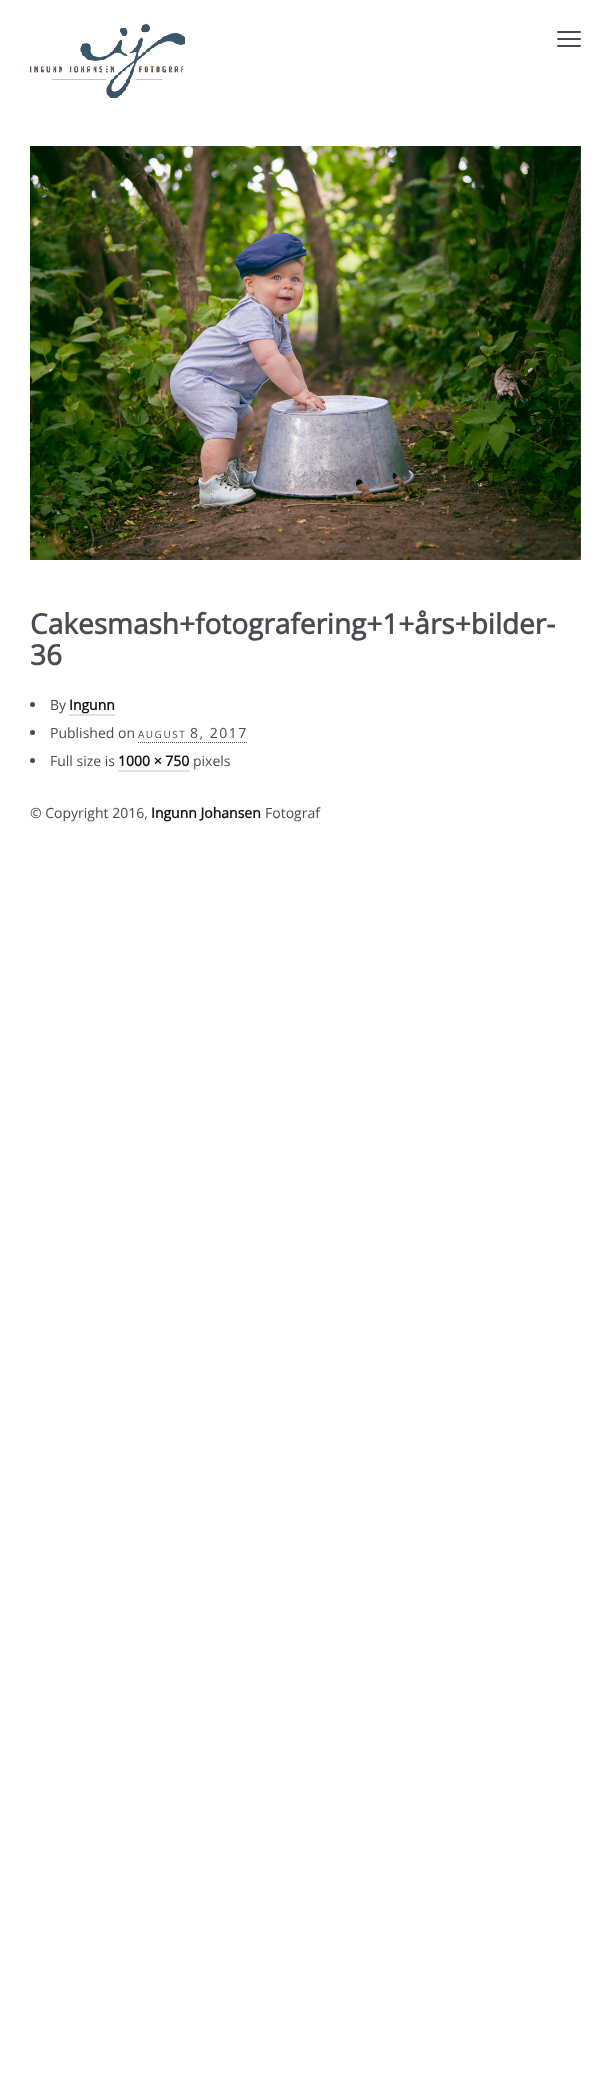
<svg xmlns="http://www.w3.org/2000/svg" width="611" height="2080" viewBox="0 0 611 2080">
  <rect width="100%" height="100%" fill="rgb(255,255,255)"/>
  <image x="30" y="24" width="155" height="74" href="pic1.png"/>
  <rect x="557" y="31" width="24" height="2" rx="1" fill="rgb(73,74,82)"/>
  <rect x="557" y="38" width="24" height="2" rx="1" fill="rgb(73,74,82)"/>
  <rect x="557" y="45" width="24" height="2" rx="1" fill="rgb(73,74,82)"/>
  <image x="30" y="146" width="551" height="414" href="pic2.png"/>
  <g font-family="Open Sans" font-size="28" font-weight="bold" fill="rgb(73,74,82)">
    <text>
      <tspan x="30" y="634">Cakesmash+fotografering+1+års+bilder-</tspan>
      <tspan x="30" y="665">36</tspan>
    </text>
  </g>
  <circle cx="32.5" cy="704.5" r="2.5" fill="rgb(73,74,82)"/>
  <text x="50" y="710" font-family="Open Sans" font-size="14" fill="rgb(73,74,82)">By</text>
  <text x="69" y="710" font-family="Open Sans" font-size="14" font-weight="bold" fill="rgb(17,17,17)">Ingunn</text>
  <rect x="69" y="714" width="46" height="2" fill="rgb(224,227,229)"/>
  <circle cx="32.5" cy="732.5" r="2.5" fill="rgb(73,74,82)"/>
  <text x="50" y="738" font-family="Open Sans" font-size="14" fill="rgb(73,74,82)">Published on</text>
  <text x="138" y="738" font-family="Open Sans" font-size="10" letter-spacing="1.5" fill="rgb(73,74,82)">AUGUST</text>
  <path d="M138 742.5H248" fill="none" stroke="rgb(73,74,82)" stroke-dasharray="1 1"/>
  <text x="190" y="738" font-family="Open Sans" font-size="14" letter-spacing="1.5" fill="rgb(73,74,82)">8, 2017</text>
  <circle cx="32.5" cy="760.5" r="2.5" fill="rgb(73,74,82)"/>
  <text x="50" y="766" font-family="Open Sans" font-size="14" fill="rgb(73,74,82)">Full size is</text>
  <text x="118" y="766" font-family="Open Sans" font-size="14" font-weight="bold" fill="rgb(17,17,17)">1000 × 750</text>
  <rect x="118" y="770" width="72" height="2" fill="rgb(224,227,229)"/>
  <g font-family="Open Sans" font-size="14" fill="rgb(73,74,82)">
    <text x="193" y="766">pixels</text>
    <text x="30" y="818">© Copyright 2016,</text>
  </g>
  <text x="151" y="818" font-family="Open Sans" font-size="14" font-weight="bold" fill="rgb(17,17,17)">Ingunn Johansen</text>
  <text x="265" y="818" font-family="Open Sans" font-size="14" fill="rgb(73,74,82)">Fotograf</text>
</svg>
